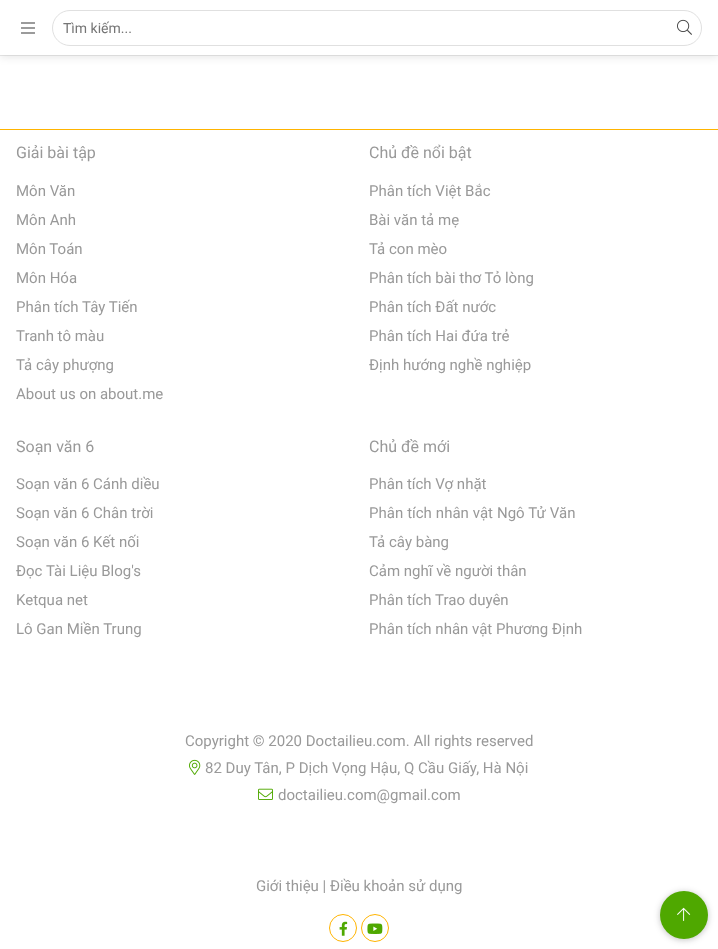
<svg xmlns="http://www.w3.org/2000/svg" width="718" height="949" viewBox="0 0 718 949">
  <rect width="100%" height="100%" fill="rgb(255,255,255)"/>
  <rect x="0" y="55" width="718" height="1" fill="rgb(234,234,234)"/>
  <rect x="0" y="2" width="718" height="55" fill="rgba(0,0,0,0.1)" filter="blur(4px)"/>
  <rect x="0" y="0" width="718" height="55" fill="rgb(255,255,255)"/>
  <image x="21" y="22" width="14" height="12" href="pic1.png"/>
  <rect x="52.5" y="10.5" width="649" height="35" rx="17.5" fill="none" stroke="rgb(224,224,224)"/>
  <text x="63" y="33" font-family="Roboto" font-size="14" fill="rgb(117,117,117)">Tìm kiếm...</text>
  <image x="677" y="19" width="15" height="16" href="pic2.png"/>
  <rect x="0" y="129" width="718" height="1" fill="rgb(255,180,0)"/>
  <text x="16" y="158" font-family="Roboto" font-size="16" fill="rgb(153,153,153)">Giải bài tập</text>
  <g font-family="Roboto" font-size="15" fill="rgb(153,153,153)">
    <text>
      <tspan x="16" y="196">Môn Văn</tspan>
      <tspan x="16" y="225">Môn Anh</tspan>
      <tspan x="16" y="254">Môn Toán</tspan>
      <tspan x="16" y="283">Môn Hóa</tspan>
      <tspan x="16" y="312">Phân tích Tây Tiến</tspan>
      <tspan x="16" y="341">Tranh tô màu</tspan>
      <tspan x="16" y="370">Tả cây phượng</tspan>
      <tspan x="16" y="399">About us on about.me</tspan>
    </text>
  </g>
  <text x="369" y="158" font-family="Roboto" font-size="16" fill="rgb(153,153,153)">Chủ đề nổi bật</text>
  <g font-family="Roboto" font-size="15" fill="rgb(153,153,153)">
    <text>
      <tspan x="369" y="196">Phân tích Việt Bắc</tspan>
      <tspan x="369" y="225">Bài văn tả mẹ</tspan>
      <tspan x="369" y="254">Tả con mèo</tspan>
      <tspan x="369" y="283">Phân tích bài thơ Tỏ lòng</tspan>
      <tspan x="369" y="312">Phân tích Đất nước</tspan>
      <tspan x="369" y="341">Phân tích Hai đứa trẻ</tspan>
      <tspan x="369" y="370">Định hướng nghề nghiệp</tspan>
    </text>
  </g>
  <text x="16" y="452" font-family="Roboto" font-size="16" fill="rgb(153,153,153)">Soạn văn 6</text>
  <g font-family="Roboto" font-size="15" fill="rgb(153,153,153)">
    <text>
      <tspan x="16" y="489">Soạn văn 6 Cánh diều</tspan>
      <tspan x="16" y="518">Soạn văn 6 Chân trời</tspan>
      <tspan x="16" y="547">Soạn văn 6 Kết nối</tspan>
      <tspan x="16" y="576">Đọc Tài Liệu Blog's</tspan>
      <tspan x="16" y="605">Ketqua net</tspan>
      <tspan x="16" y="634">Lô Gan Miền Trung</tspan>
    </text>
  </g>
  <text x="369" y="452" font-family="Roboto" font-size="16" fill="rgb(153,153,153)">Chủ đề mới</text>
  <g font-family="Roboto" font-size="15" fill="rgb(153,153,153)">
    <text>
      <tspan x="369" y="489">Phân tích Vợ nhặt</tspan>
      <tspan x="369" y="518" word-spacing="0.25">Phân tích nhân vật Ngô Tử Văn</tspan>
      <tspan x="369" y="547">Tả cây bàng</tspan>
      <tspan x="369" y="576">Cảm nghĩ về người thân</tspan>
      <tspan x="369" y="605">Phân tích Trao duyên</tspan>
      <tspan x="369" y="634">Phân tích nhân vật Phương Định</tspan>
    </text>
    <text x="185" y="746">Copyright © 2020 Doctailieu.com. All rights reserved</text>
  </g>
  <image x="189" y="759" width="12" height="16" href="pic3.png"/>
  <text x="205" y="773" font-family="Roboto" font-size="15" fill="rgb(153,153,153)">82 Duy Tân, P Dịch Vọng Hậu, Q Cầu Giấy, Hà Nội</text>
  <image x="258" y="788" width="15" height="12" href="pic4.png"/>
  <g font-family="Roboto" font-size="15" fill="rgb(153,153,153)">
    <text x="278" y="800">doctailieu.com@gmail.com</text>
    <text x="256" y="891">Giới thiệu | Điều khoản sử dụng</text>
  </g>
  <circle cx="343" cy="928" r="13.5" fill="none" stroke="rgb(255,180,0)"/>
  <image x="339" y="921" width="9" height="15" href="pic5.png"/>
  <circle cx="375" cy="928" r="13.5" fill="none" stroke="rgb(255,180,0)"/>
  <image x="367" y="923" width="16" height="11" href="pic6.png"/>
  <rect x="660" y="892" width="48" height="48" rx="24" fill="rgba(32,33,36,0.28)" filter="blur(3px)"/>
  <circle cx="684" cy="915" r="24" fill="rgb(79,168,0)"/>
  <image x="677" y="907" width="14" height="14" href="pic7.png"/>
</svg>
